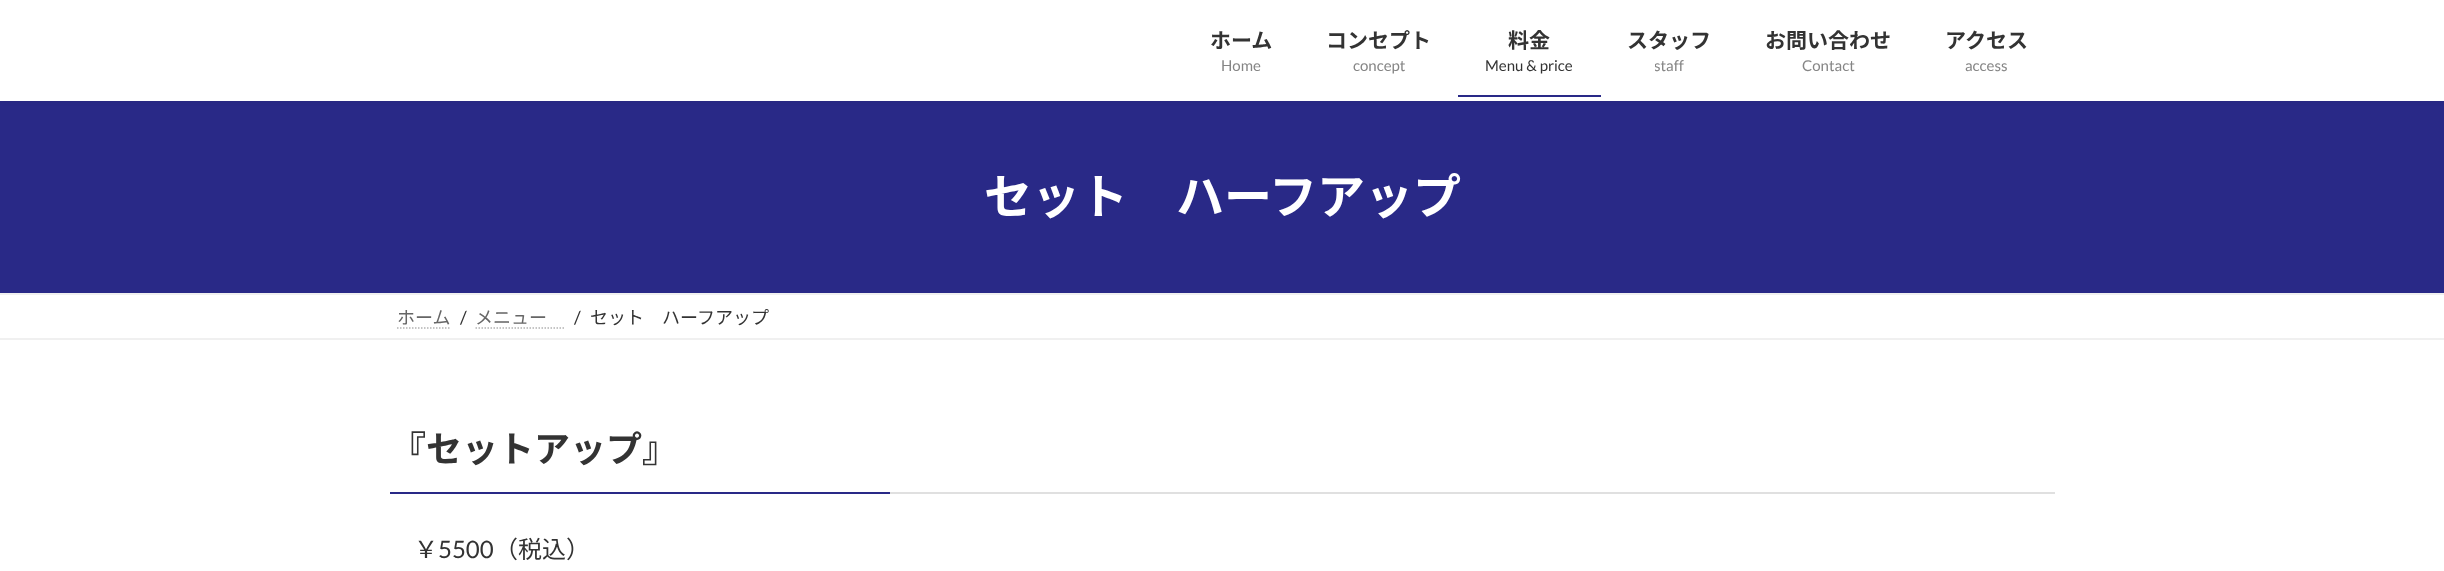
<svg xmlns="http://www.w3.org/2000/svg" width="2444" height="571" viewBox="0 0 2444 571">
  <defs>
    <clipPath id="clip1"><rect x="1655" y="54" width="30" height="21"/></clipPath>
  </defs>
  <rect width="100%" height="100%" fill="rgb(255,255,255)"/>
  <rect x="0" y="101" width="2444" height="192" fill="rgb(41,41,135)"/>
  <rect x="0" y="2" width="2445" height="100" fill="rgba(0,0,0,0.05)" filter="blur(2px)"/>
  <rect x="0" y="0" width="2444" height="101" fill="rgb(255,255,255)"/>
  <text x="1210" y="48" font-family="Noto Sans JP" font-size="21" font-weight="bold" fill="rgb(51,51,51)">ホーム</text>
  <text x="1221" y="71" font-family="Lato" font-size="15" fill="rgb(133,133,133)">Home</text>
  <text x="1326" y="48" font-family="Noto Sans JP" font-size="21" font-weight="bold" fill="rgb(51,51,51)">コンセプト</text>
  <text x="1353" y="71" font-family="Lato" font-size="15" fill="rgb(133,133,133)">concept</text>
  <text x="1508" y="48" font-family="Noto Sans JP" font-size="21" font-weight="bold" fill="rgb(51,51,51)">料金</text>
  <text x="1485" y="71" font-family="Lato" font-size="15" fill="rgb(51,51,51)">Menu &amp; price</text>
  <rect x="1458" y="95" width="143" height="2" fill="rgb(41,41,135)"/>
  <text x="1627" y="48" font-family="Noto Sans JP" font-size="21" font-weight="bold" fill="rgb(51,51,51)">スタッフ</text>
  <g clip-path="url(#clip1)">
    <text x="1654" y="71" font-family="Lato" font-size="15" fill="rgb(133,133,133)">staff</text>
  </g>
  <text x="1765" y="48" font-family="Noto Sans JP" font-size="21" font-weight="bold" fill="rgb(51,51,51)">お問い合わせ</text>
  <text x="1802" y="71" font-family="Lato" font-size="15" fill="rgb(133,133,133)">Contact</text>
  <text x="1945" y="48" font-family="Noto Sans JP" font-size="21" font-weight="bold" fill="rgb(51,51,51)">アクセス</text>
  <text x="1965" y="71" font-family="Lato" font-size="15" fill="rgb(133,133,133)">access</text>
  <text x="984" y="214" font-family="Noto Sans JP" font-size="48" font-weight="bold" fill="rgb(255,255,255)">セット　ハーフアップ</text>
  <rect x="0" y="293" width="2444" height="2" fill="rgb(240,240,240)"/>
  <rect x="0" y="338" width="2444" height="2" fill="rgb(240,240,240)"/>
  <text x="397" y="324" font-family="Noto Sans JP" font-size="18" fill="rgb(102,102,102)">ホーム</text>
  <path d="M397 328H450.5" fill="none" stroke="rgb(179,179,179)" stroke-width="1.5" stroke-dasharray="1.5 1.5"/>
  <text x="460" y="324" font-family="Lato" font-size="18" fill="rgb(51,51,51)">/</text>
  <text x="475" y="324" font-family="Noto Sans JP" font-size="18" fill="rgb(102,102,102)">メニュー</text>
  <path d="M475.5 328H565.5" fill="none" stroke="rgb(179,179,179)" stroke-width="1.5" stroke-dasharray="1.5 1.5"/>
  <text x="574" y="324" font-family="Lato" font-size="18" fill="rgb(51,51,51)">/</text>
  <text x="590" y="324" font-family="Noto Sans JP" font-size="18" fill="rgb(51,51,51)">セット　ハーフアップ</text>
  <rect x="890" y="492" width="1165" height="2" fill="rgb(224,224,224)"/>
  <text x="390" y="462" font-family="Noto Sans JP" font-size="36" font-weight="bold" fill="rgb(51,51,51)">『セットアップ』</text>
  <rect x="390" y="492" width="500" height="2" fill="rgb(41,41,135)"/>
  <text x="414" y="558" font-family="Noto Sans JP" font-size="24" fill="rgb(51,51,51)">￥</text>
  <text x="438" y="558" font-family="Lato" font-size="24" fill="rgb(51,51,51)">5500</text>
  <text x="494" y="558" font-family="Noto Sans JP" font-size="24" fill="rgb(51,51,51)">（税込）</text>
</svg>
